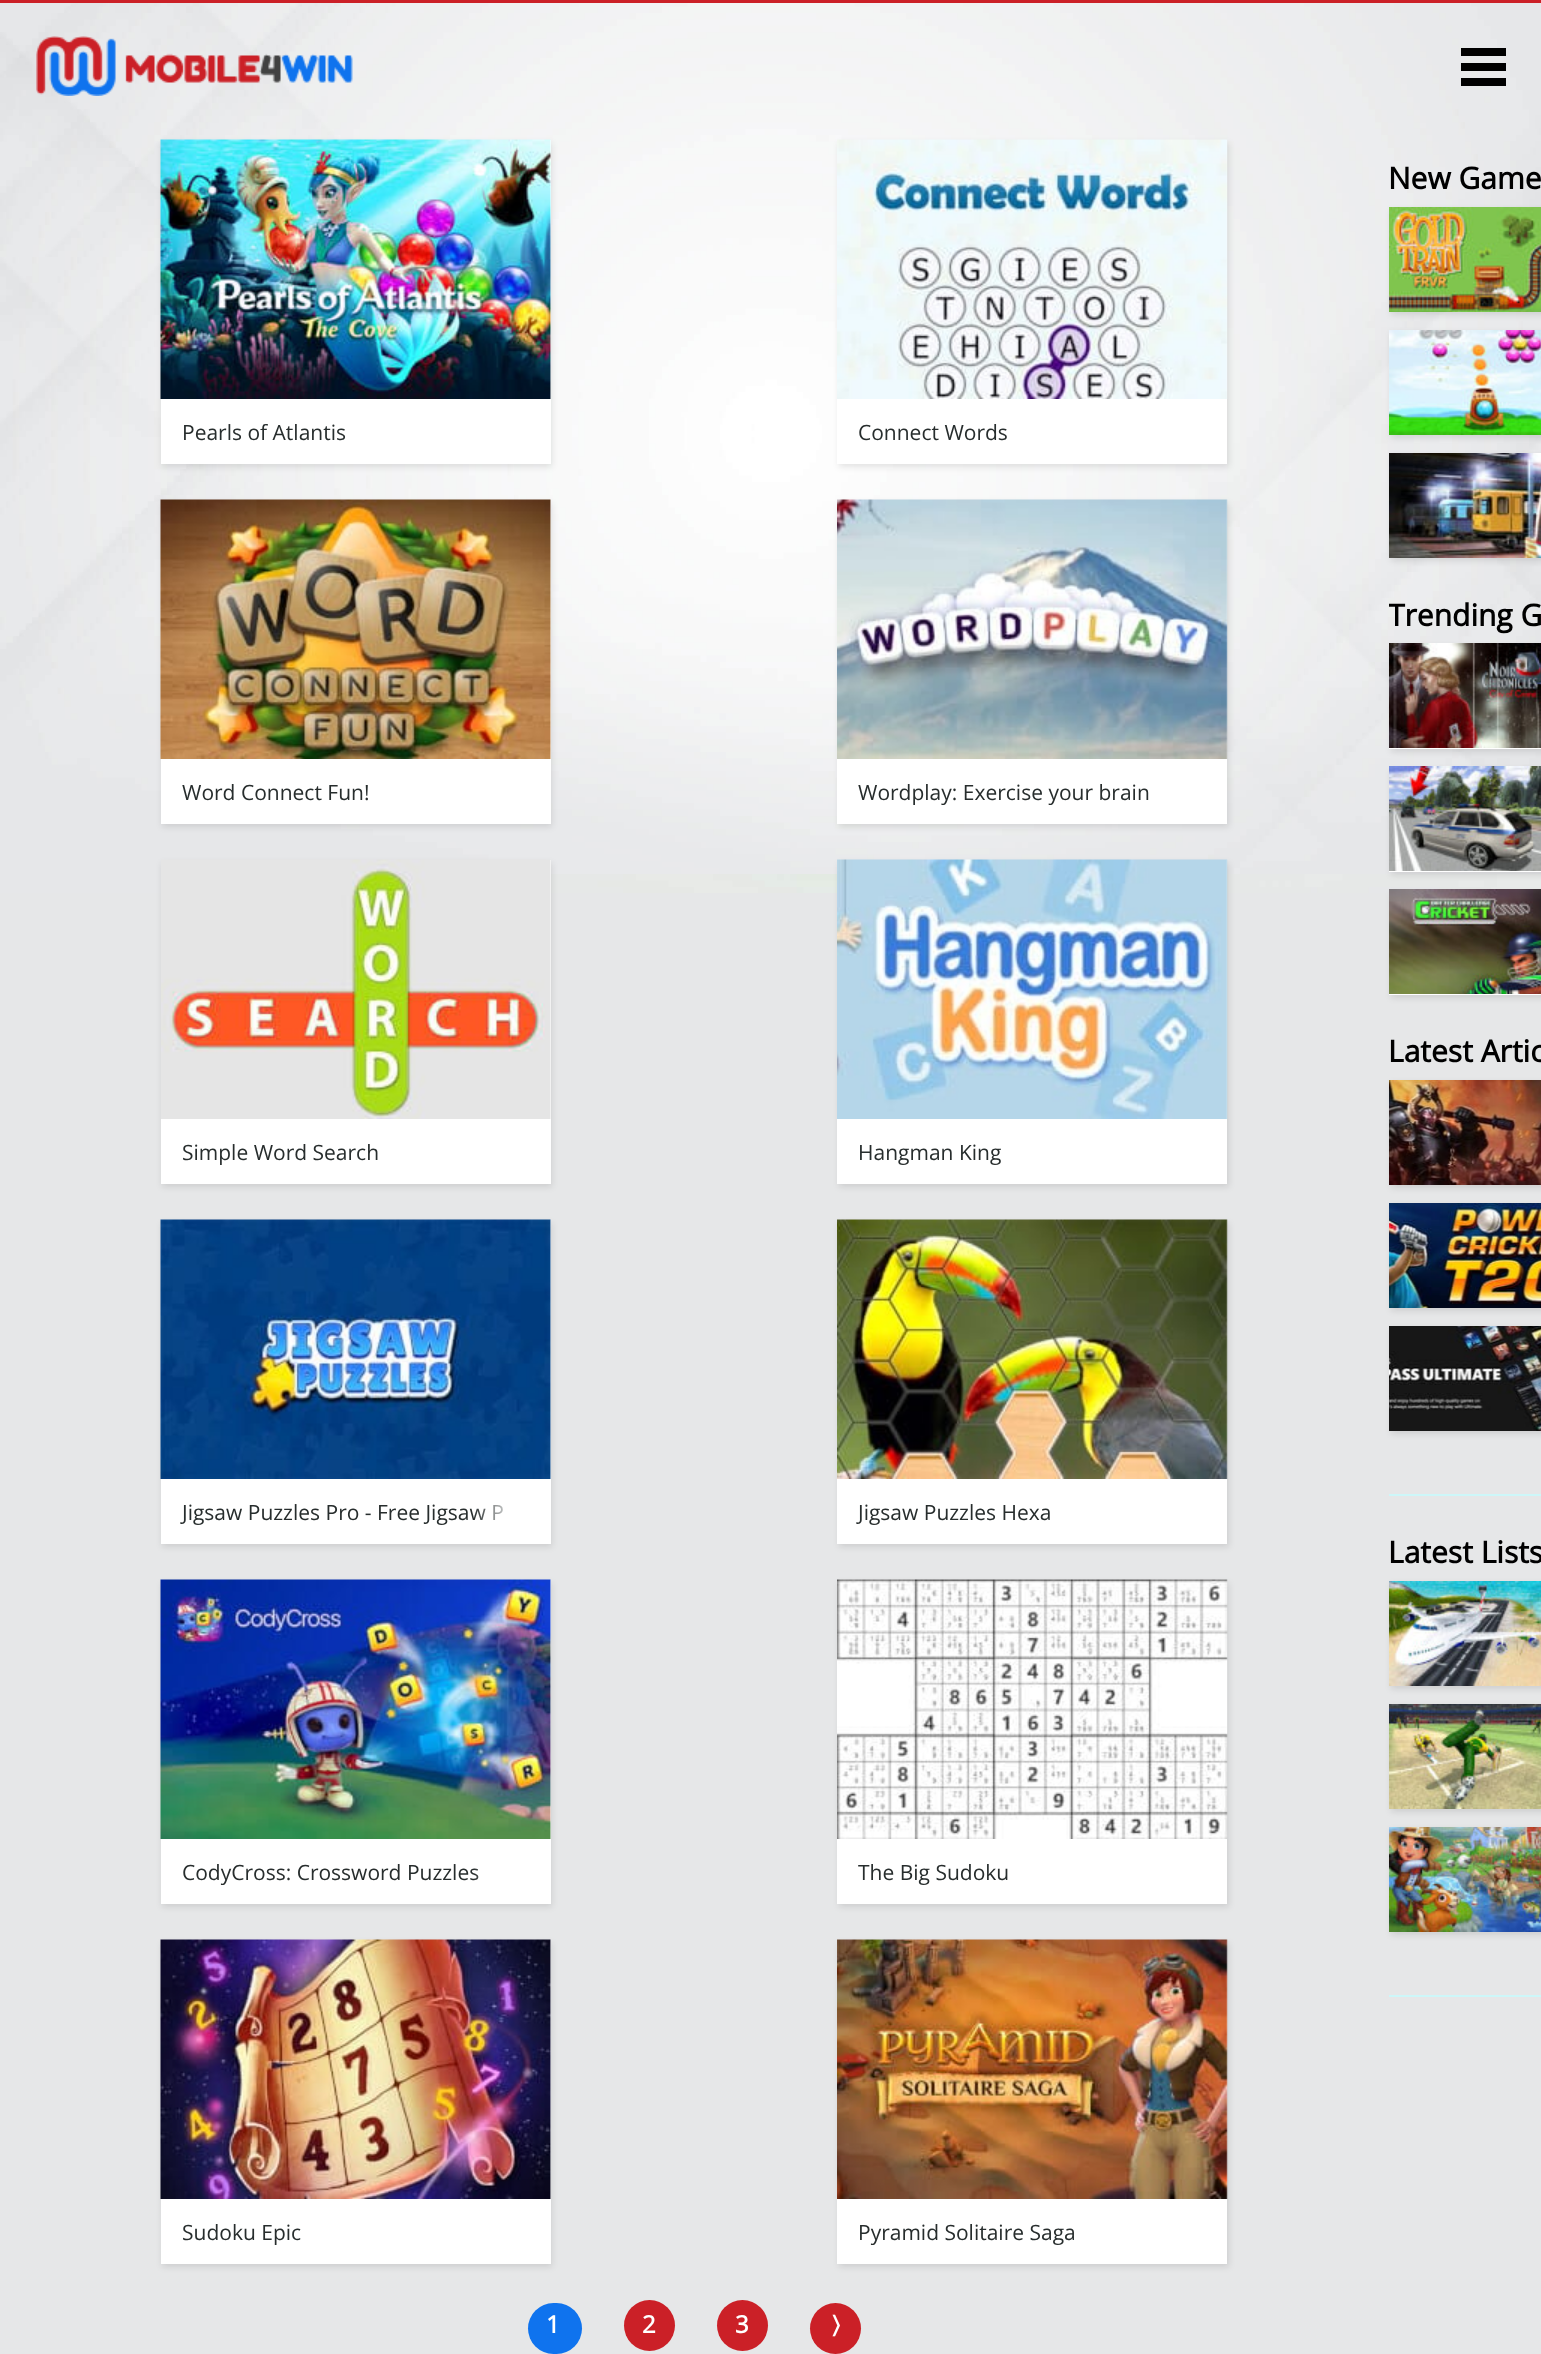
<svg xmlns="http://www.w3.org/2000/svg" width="1541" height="2354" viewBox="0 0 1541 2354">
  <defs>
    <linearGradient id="g1" gradientUnits="userSpaceOnUse" x1="473" y1="1511" x2="551" y2="1511"><stop offset="0" stop-color="rgb(255,255,255)" stop-opacity="0"/><stop offset="0.5" stop-color="rgb(255,255,255)" stop-opacity="0.89"/></linearGradient>
    <linearGradient id="g2" gradientUnits="userSpaceOnUse" x1="473" y1="1871" x2="551" y2="1871"><stop offset="0" stop-color="rgb(255,255,255)" stop-opacity="0"/><stop offset="0.5" stop-color="rgb(255,255,255)" stop-opacity="0.89"/></linearGradient>
    <clipPath id="clip1"><rect x="1389" y="594" width="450" height="41"/></clipPath>
  </defs>
  <rect width="100%" height="100%" fill="rgb(230,231,232)"/>
  <image x="0" y="3" width="1541" height="890" href="pic1.png"/>
  <rect x="0" y="0" width="1541" height="3" fill="rgb(203,32,39)"/>
  <image x="36" y="36" width="317" height="60" href="pic2.png"/>
  <rect x="1461" y="48" width="45" height="8" fill="rgb(0,0,0)"/>
  <rect x="1461" y="63" width="45" height="8" fill="rgb(0,0,0)"/>
  <rect x="1461" y="78" width="45" height="8" fill="rgb(0,0,0)"/>
  <rect x="162" y="143" width="390" height="324" fill="rgba(0,0,0,0.1)" filter="blur(3px)"/>
  <rect x="161" y="140" width="390" height="324" fill="rgb(255,255,255)"/>
  <image x="160" y="139" width="391" height="260" href="pic3.png"/>
  <text x="182" y="440" font-family="Open Sans" font-size="21" fill="rgb(39,45,45)">Pearls of Atlantis</text>
  <rect x="839" y="143" width="390" height="324" fill="rgba(0,0,0,0.1)" filter="blur(3px)"/>
  <rect x="837" y="140" width="390" height="324" fill="rgb(255,255,255)"/>
  <image x="837" y="139" width="391" height="260" href="pic4.png"/>
  <text x="858" y="440" font-family="Open Sans" font-size="21" fill="rgb(39,45,45)">Connect Words</text>
  <rect x="162" y="503" width="390" height="324" fill="rgba(0,0,0,0.1)" filter="blur(3px)"/>
  <rect x="161" y="500" width="390" height="324" fill="rgb(255,255,255)"/>
  <image x="160" y="499" width="391" height="260" href="pic5.png"/>
  <text x="182" y="800" font-family="Open Sans" font-size="21" fill="rgb(39,45,45)">Word Connect Fun!</text>
  <rect x="839" y="503" width="390" height="324" fill="rgba(0,0,0,0.1)" filter="blur(3px)"/>
  <rect x="837" y="500" width="390" height="324" fill="rgb(255,255,255)"/>
  <image x="837" y="499" width="391" height="260" href="pic6.png"/>
  <text x="858" y="800" font-family="Open Sans" font-size="21" fill="rgb(39,45,45)">Wordplay: Exercise your brain</text>
  <rect x="162" y="863" width="390" height="324" fill="rgba(0,0,0,0.1)" filter="blur(3px)"/>
  <rect x="161" y="860" width="390" height="324" fill="rgb(255,255,255)"/>
  <image x="161" y="859" width="390" height="260" href="pic7.png"/>
  <text x="182" y="1160" font-family="Open Sans" font-size="21" fill="rgb(39,45,45)">Simple Word Search</text>
  <rect x="839" y="863" width="390" height="324" fill="rgba(0,0,0,0.1)" filter="blur(3px)"/>
  <rect x="837" y="860" width="390" height="324" fill="rgb(255,255,255)"/>
  <image x="837" y="859" width="391" height="260" href="pic8.png"/>
  <text x="858" y="1160" font-family="Open Sans" font-size="21" fill="rgb(39,45,45)">Hangman King</text>
  <rect x="162" y="1223" width="390" height="324" fill="rgba(0,0,0,0.1)" filter="blur(3px)"/>
  <rect x="161" y="1220" width="390" height="324" fill="rgb(255,255,255)"/>
  <image x="160" y="1219" width="391" height="260" href="pic9.png"/>
  <text x="182" y="1520" font-family="Open Sans" font-size="21" fill="rgb(39,45,45)">Jigsaw Puzzles Pro - Free Jigsaw P</text>
  <rect x="474" y="1505" width="29" height="15" fill="url(#g1)"/>
  <rect x="839" y="1223" width="390" height="324" fill="rgba(0,0,0,0.1)" filter="blur(3px)"/>
  <rect x="837" y="1220" width="390" height="324" fill="rgb(255,255,255)"/>
  <image x="837" y="1219" width="391" height="260" href="pic10.png"/>
  <text x="858" y="1520" font-family="Open Sans" font-size="21" fill="rgb(39,45,45)">Jigsaw Puzzles Hexa</text>
  <rect x="162" y="1583" width="390" height="324" fill="rgba(0,0,0,0.1)" filter="blur(3px)"/>
  <rect x="161" y="1580" width="390" height="324" fill="rgb(255,255,255)"/>
  <image x="160" y="1579" width="391" height="260" href="pic11.png"/>
  <text x="182" y="1880" font-family="Open Sans" font-size="21" fill="rgb(39,45,45)">CodyCross: Crossword Puzzles</text>
  <rect x="474" y="1868" width="5" height="12" fill="url(#g2)"/>
  <rect x="839" y="1583" width="390" height="324" fill="rgba(0,0,0,0.1)" filter="blur(3px)"/>
  <rect x="837" y="1580" width="390" height="324" fill="rgb(255,255,255)"/>
  <image x="837" y="1579" width="391" height="260" href="pic12.png"/>
  <text x="858" y="1880" font-family="Open Sans" font-size="21" fill="rgb(39,45,45)">The Big Sudoku</text>
  <rect x="162" y="1943" width="390" height="324" fill="rgba(0,0,0,0.1)" filter="blur(3px)"/>
  <rect x="161" y="1940" width="390" height="324" fill="rgb(255,255,255)"/>
  <image x="160" y="1939" width="391" height="260" href="pic13.png"/>
  <text x="182" y="2240" font-family="Open Sans" font-size="21" fill="rgb(39,45,45)">Sudoku Epic</text>
  <rect x="839" y="1943" width="390" height="324" fill="rgba(0,0,0,0.1)" filter="blur(3px)"/>
  <rect x="837" y="1940" width="390" height="324" fill="rgb(255,255,255)"/>
  <image x="837" y="1939" width="391" height="260" href="pic14.png"/>
  <text x="858" y="2240" font-family="Open Sans" font-size="21" fill="rgb(39,45,45)">Pyramid Solitaire Saga</text>
  <rect x="528" y="2303" width="54" height="51" rx="25.5" fill="rgb(15,115,238)"/>
  <text x="546" y="2333" font-family="Open Sans" font-size="24" font-weight="bold" fill="rgb(255,255,255)">1</text>
  <circle cx="649.5" cy="2325.5" r="25.5" fill="rgb(203,32,39)"/>
  <text x="642" y="2333" font-family="Open Sans" font-size="24" font-weight="bold" fill="rgb(255,255,255)">2</text>
  <circle cx="742.5" cy="2325.5" r="25.5" fill="rgb(203,32,39)"/>
  <text x="735" y="2333" font-family="Open Sans" font-size="24" font-weight="bold" fill="rgb(255,255,255)">3</text>
  <circle cx="835.5" cy="2328.5" r="25.5" fill="rgb(203,32,39)"/>
  <text x="832" y="2333" font-family="FreeSans" font-size="24" font-weight="bold" fill="rgb(255,255,255)">〉</text>
  <text x="1388" y="189" font-family="Open Sans" font-size="30" font-weight="bold" fill="rgb(0,0,0)">New Game</text>
  <rect x="1391" y="210" width="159" height="105" fill="rgba(0,0,0,0.1)" filter="blur(3px)"/>
  <image x="1389" y="207" width="152" height="105" href="pic15.png"/>
  <rect x="1391" y="333" width="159" height="105" fill="rgba(0,0,0,0.1)" filter="blur(3px)"/>
  <image x="1389" y="330" width="152" height="105" href="pic16.png"/>
  <rect x="1391" y="456" width="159" height="105" fill="rgba(0,0,0,0.1)" filter="blur(3px)"/>
  <image x="1389" y="453" width="152" height="105" href="pic17.png"/>
  <g clip-path="url(#clip1)">
    <text x="1388" y="626" font-family="Open Sans" font-size="30" font-weight="bold" fill="rgb(0,0,0)">Trending G</text>
  </g>
  <rect x="1391" y="647" width="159" height="105" fill="rgba(0,0,0,0.1)" filter="blur(3px)"/>
  <rect x="1389" y="748" width="152" height="1" fill="rgb(255,255,255)"/>
  <image x="1389" y="643" width="152" height="105" href="pic18.png"/>
  <rect x="1391" y="770" width="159" height="105" fill="rgba(0,0,0,0.1)" filter="blur(3px)"/>
  <rect x="1389" y="871" width="152" height="1" fill="rgb(255,255,255)"/>
  <image x="1389" y="766" width="152" height="105" href="pic19.png"/>
  <rect x="1391" y="893" width="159" height="105" fill="rgba(0,0,0,0.1)" filter="blur(3px)"/>
  <rect x="1389" y="994" width="152" height="1" fill="rgb(255,255,255)"/>
  <image x="1389" y="889" width="152" height="105" href="pic20.png"/>
  <text x="1388" y="1062" font-family="Open Sans" font-size="30" font-weight="bold" fill="rgb(0,0,0)">Latest Artic</text>
  <rect x="1391" y="1083" width="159" height="105" fill="rgba(0,0,0,0.1)" filter="blur(3px)"/>
  <image x="1389" y="1080" width="152" height="105" href="pic21.png"/>
  <rect x="1391" y="1206" width="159" height="105" fill="rgba(0,0,0,0.1)" filter="blur(3px)"/>
  <image x="1389" y="1203" width="152" height="105" href="pic22.png"/>
  <rect x="1391" y="1329" width="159" height="105" fill="rgba(0,0,0,0.1)" filter="blur(3px)"/>
  <image x="1389" y="1326" width="152" height="105" href="pic23.png"/>
  <rect x="1389" y="1494" width="152" height="2" fill="rgb(205,247,249)"/>
  <text x="1388" y="1563" font-family="Open Sans" font-size="30" font-weight="bold" fill="rgb(0,0,0)">Latest Lists</text>
  <rect x="1391" y="1584" width="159" height="105" fill="rgba(0,0,0,0.1)" filter="blur(3px)"/>
  <image x="1389" y="1581" width="152" height="105" href="pic24.png"/>
  <rect x="1391" y="1707" width="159" height="105" fill="rgba(0,0,0,0.1)" filter="blur(3px)"/>
  <image x="1389" y="1704" width="152" height="105" href="pic25.png"/>
  <rect x="1391" y="1830" width="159" height="105" fill="rgba(0,0,0,0.1)" filter="blur(3px)"/>
  <image x="1389" y="1827" width="152" height="105" href="pic26.png"/>
  <rect x="1389" y="1995" width="152" height="2" fill="rgb(205,247,249)"/>
</svg>
